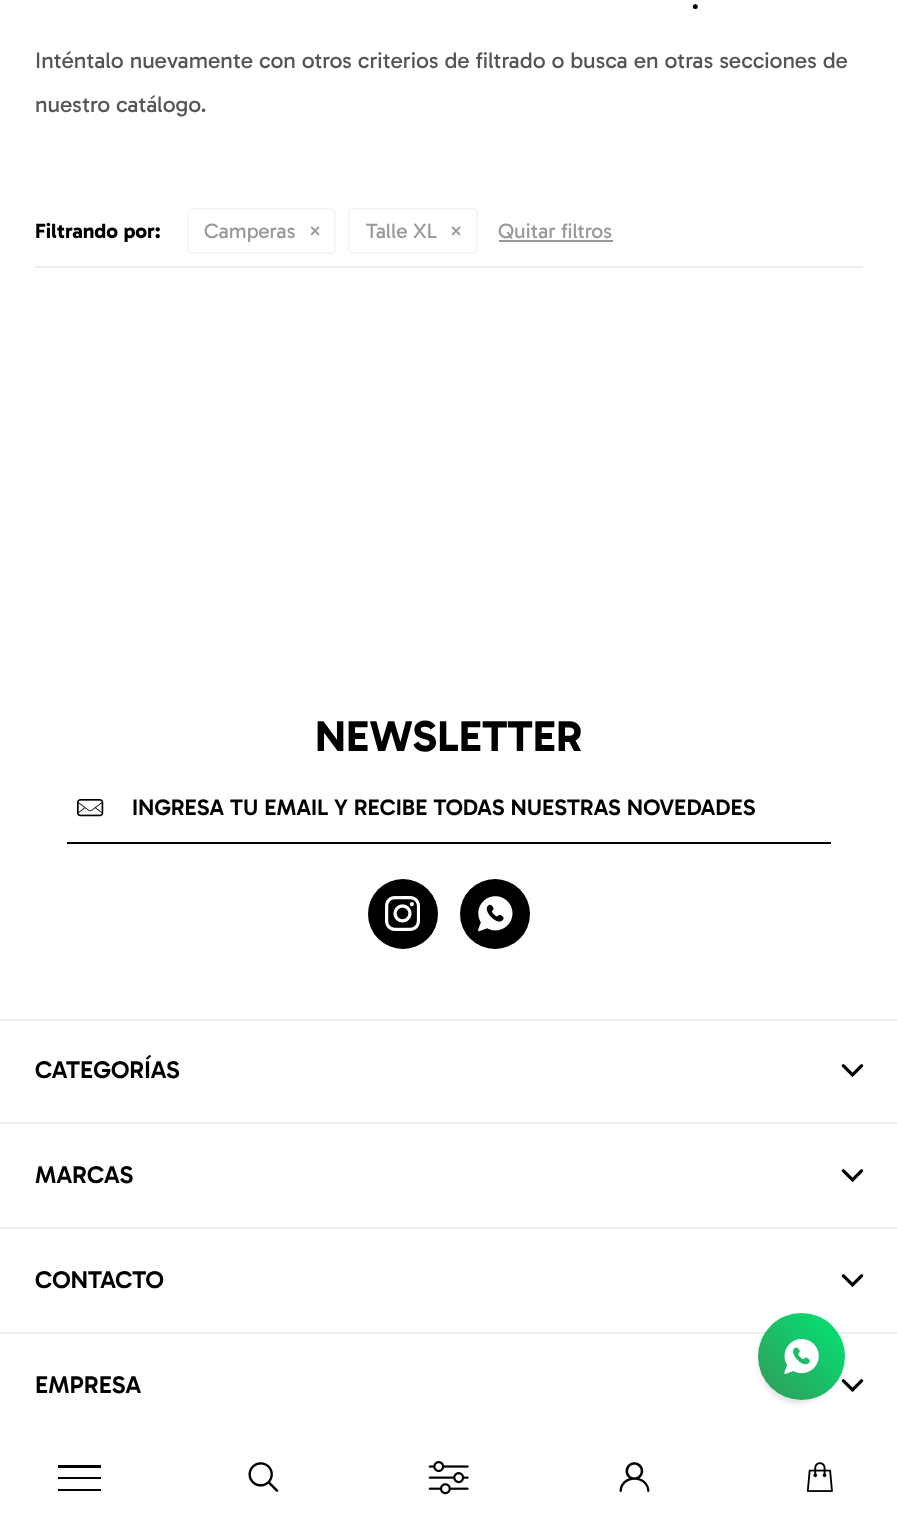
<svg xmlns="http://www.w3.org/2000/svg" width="897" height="1521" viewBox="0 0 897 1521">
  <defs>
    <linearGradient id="g1" gradientUnits="userSpaceOnUse" x1="758" y1="1400" x2="845" y2="1313"><stop offset="0" stop-color="rgb(51,153,90)"/><stop offset="1" stop-color="rgb(1,230,117)"/></linearGradient>
  </defs>
  <rect width="100%" height="100%" fill="rgb(255,255,255)"/>
  <text x="691" y="9" font-family="Gabarito" font-size="32" fill="rgb(0,0,0)">.</text>
  <g font-family="Gabarito" font-size="22.75" fill="rgb(85,85,85)">
    <text>
      <tspan x="35" y="68">Inténtalo nuevamente con otros criterios de filtrado o busca en otras secciones de</tspan>
      <tspan x="35" y="112">nuestro catálogo.</tspan>
    </text>
  </g>
  <rect x="35" y="266" width="828" height="2" fill="rgb(237,237,237)"/>
  <text x="35" y="238" font-family="Gabarito" font-size="21" font-weight="bold" fill="rgb(0,0,0)">Filtrando por:</text>
  <rect x="188" y="209" width="147" height="44" rx="4" fill="none" stroke="rgb(246,246,246)" stroke-width="2"/>
  <g font-family="Gabarito" font-size="21" fill="rgb(153,153,153)">
    <text x="204" y="238">Camperas</text>
    <text x="308" y="238">×</text>
  </g>
  <rect x="349" y="209" width="128" height="44" rx="4" fill="none" stroke="rgb(246,246,246)" stroke-width="2"/>
  <g font-family="Gabarito" font-size="21" fill="rgb(153,153,153)">
    <text x="366" y="238">Talle XL</text>
    <text x="449" y="238">×</text>
    <text x="498" y="238">Quitar filtros</text>
  </g>
  <rect x="499" y="240" width="114" height="2" fill="rgb(153,153,153)"/>
  <rect x="0" y="1332" width="897" height="2" fill="rgb(237,237,237)"/>
  <image x="841" y="1379" width="23" height="14" href="pic4.png"/>
  <rect x="763" y="1330" width="70" height="70" rx="35" fill="rgba(0,0,0,0.25)" filter="blur(4.5px)"/>
  <circle cx="798" cy="1365" r="35" fill="rgb(255,255,255)"/>
  <text x="315" y="751" font-family="Gabarito" font-size="43.75" font-weight="bold" fill="rgb(0,0,0)">NEWSLETTER</text>
  <rect x="67" y="842" width="764" height="2" fill="rgb(0,0,0)"/>
  <image x="77" y="799" width="27" height="18" href="pic1.png"/>
  <text x="132" y="815" font-family="Gabarito" font-size="22.75" font-weight="600" fill="rgb(0,0,0)">INGRESA TU EMAIL Y RECIBE TODAS NUESTRAS NOVEDADES</text>
  <circle cx="403" cy="914" r="35" fill="rgb(0,0,0)"/>
  <image x="385" y="896" width="35" height="35" href="pic2.png"/>
  <circle cx="495" cy="914" r="35" fill="rgb(0,0,0)"/>
  <image x="478" y="896" width="35" height="36" href="pic3.png"/>
  <rect x="0" y="1019" width="897" height="2" fill="rgb(237,237,237)"/>
  <text x="35" y="1078" font-family="Gabarito" font-size="24.5" font-weight="600" fill="rgb(0,0,0)">CATEGORÍAS</text>
  <image x="841" y="1064" width="23" height="14" href="pic4.png"/>
  <rect x="0" y="1122" width="897" height="2" fill="rgb(237,237,237)"/>
  <text x="35" y="1183" font-family="Gabarito" font-size="24.5" font-weight="600" fill="rgb(0,0,0)">MARCAS</text>
  <image x="841" y="1169" width="23" height="14" href="pic4.png"/>
  <rect x="0" y="1227" width="897" height="2" fill="rgb(237,237,237)"/>
  <text x="35" y="1288" font-family="Gabarito" font-size="24.5" font-weight="600" fill="rgb(0,0,0)">CONTACTO</text>
  <image x="841" y="1274" width="23" height="14" href="pic4.png"/>
  <text x="35" y="1393" font-family="Gabarito" font-size="24.5" font-weight="600" fill="rgb(0,0,0)">EMPRESA</text>
  <path d="M101 1468H58V1465H101ZM101 1479V1477H58V1479ZM58 1491V1489H101V1491Z" fill="rgb(0,0,0)"/>
  <image x="248" y="1462" width="31" height="30" href="pic5.png"/>
  <image x="428" y="1461" width="41" height="34" href="pic6.png"/>
  <image x="619" y="1462" width="31" height="30" href="pic7.png"/>
  <image x="806" y="1462" width="27" height="30" href="pic8.png"/>
  <circle cx="801.5" cy="1356.5" r="43.5" fill="url(#g1)"/>
  <image x="784" y="1339" width="35" height="35" href="pic9.png"/>
</svg>
